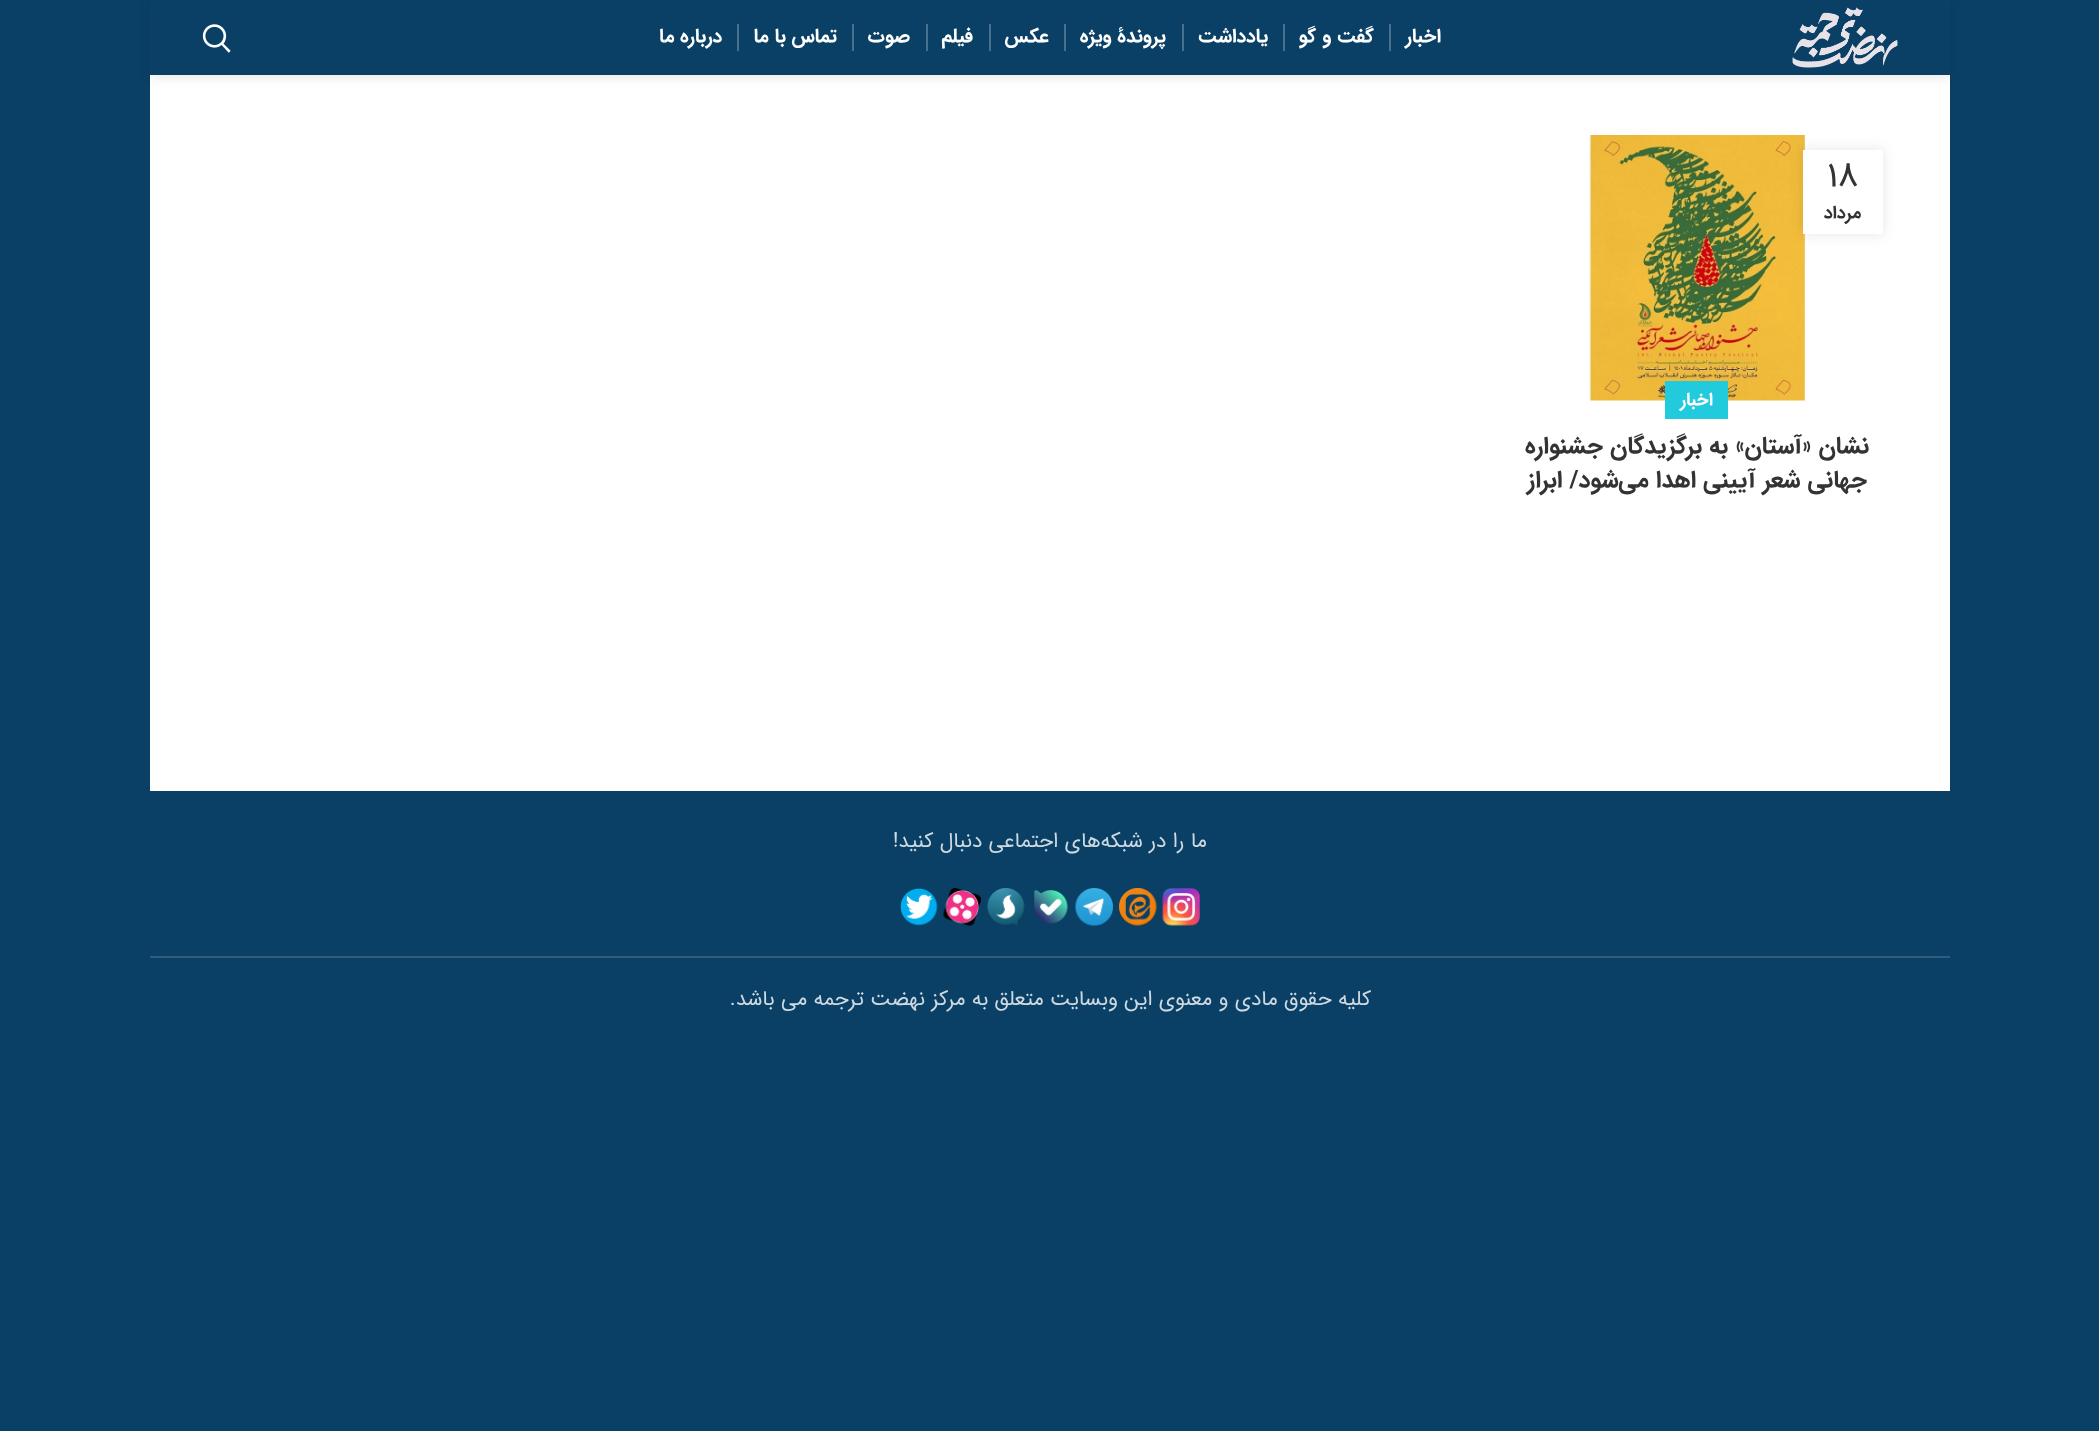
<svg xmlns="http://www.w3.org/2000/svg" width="2099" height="1431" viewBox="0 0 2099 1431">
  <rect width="100%" height="100%" fill="rgb(10,64,102)"/>
  <rect x="150" y="75" width="1800" height="716" fill="rgb(255,255,255)"/>
  <rect x="150" y="2" width="1800" height="75" fill="rgba(0,0,0,0.1)" filter="blur(6px)"/>
  <rect x="150" y="0" width="1800" height="75" fill="rgb(10,64,102)"/>
  <image x="1792" y="7" width="106" height="61" href="pic1.png"/>
  <text x="1441" y="42" font-family="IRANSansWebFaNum" font-size="19.5" font-weight="bold" direction="rtl" fill="rgb(255,255,255)">اخبار</text>
  <rect x="1389" y="24" width="2" height="27" fill="rgb(71,112,140)"/>
  <text x="1374" y="42" font-family="IRANSansWebFaNum" font-size="19.5" font-weight="bold" direction="rtl" fill="rgb(255,255,255)">گفت و گو</text>
  <rect x="1283" y="24" width="2" height="27" fill="rgb(71,112,140)"/>
  <text x="1268" y="42" font-family="IRANSansWebFaNum" font-size="19.5" font-weight="bold" direction="rtl" fill="rgb(255,255,255)">یادداشت</text>
  <rect x="1182" y="24" width="2" height="27" fill="rgb(71,112,140)"/>
  <text x="1166" y="42" font-family="IRANSansWebFaNum" font-size="19.5" font-weight="bold" direction="rtl" fill="rgb(255,255,255)">پروندۀ ویژه</text>
  <rect x="1064" y="24" width="2" height="27" fill="rgb(71,112,140)"/>
  <text x="1049" y="42" font-family="IRANSansWebFaNum" font-size="19.5" font-weight="bold" direction="rtl" fill="rgb(255,255,255)">عکس</text>
  <rect x="989" y="24" width="2" height="27" fill="rgb(71,112,140)"/>
  <text x="973" y="42" font-family="IRANSansWebFaNum" font-size="19.5" font-weight="bold" direction="rtl" fill="rgb(255,255,255)">فیلم</text>
  <rect x="926" y="24" width="2" height="27" fill="rgb(71,112,140)"/>
  <text x="910" y="42" font-family="IRANSansWebFaNum" font-size="19.5" font-weight="bold" direction="rtl" fill="rgb(255,255,255)">صوت</text>
  <rect x="852" y="24" width="2" height="27" fill="rgb(71,112,140)"/>
  <text x="837" y="42" font-family="IRANSansWebFaNum" font-size="19.5" font-weight="bold" direction="rtl" fill="rgb(255,255,255)">تماس با ما</text>
  <rect x="737" y="24" width="2" height="27" fill="rgb(71,112,140)"/>
  <text x="722" y="42" font-family="IRANSansWebFaNum" font-size="19.5" font-weight="bold" direction="rtl" fill="rgb(255,255,255)">درباره ما</text>
  <image x="202" y="24" width="29" height="29" href="pic2.png"/>
  <image x="1588" y="135" width="218" height="266" href="pic3.png"/>
  <rect x="1803" y="150" width="80" height="84" fill="rgba(0,0,0,0.1)" filter="blur(7px)"/>
  <rect x="1803" y="150" width="80" height="84" fill="rgb(255,255,255)"/>
  <text x="1827" y="186" font-family="IRANSansWebFaNum" font-size="36" fill="rgb(51,51,51)">۱۸</text>
  <text x="1861" y="218" font-family="IRANSansWebFaNum" font-size="18" font-weight="bold" direction="rtl" fill="rgb(51,51,51)">مرداد</text>
  <rect x="1665" y="381" width="63" height="38" fill="rgb(33,202,221)"/>
  <text x="1713" y="405" font-family="IRANSansWebFaNum" font-size="18" font-weight="bold" direction="rtl" fill="rgb(255,255,255)">اخبار</text>
  <g font-family="IRANSansWebFaNum" font-size="24" font-weight="bold" direction="rtl" fill="rgb(51,51,51)">
    <text x="1869" y="453">نشان «آستان» به برگزیدگان جشنواره</text>
    <text x="1867" y="487">جهانی شعر آیینی اهدا می‌شود/ ابراز</text>
  </g>
  <text x="1207" y="847" font-family="IRANSansWebFaNum" font-size="21" direction="rtl" fill="rgb(206,217,224)">ما را در شبکه‌های اجتماعی دنبال کنید!</text>
  <image x="1162" y="888" width="38" height="38" href="pic4.png"/>
  <image x="1119" y="888" width="38" height="38" href="pic5.png"/>
  <image x="1075" y="888" width="38" height="38" href="pic6.png"/>
  <image x="1034" y="890" width="34" height="34" href="pic7.png"/>
  <image x="987" y="888" width="38" height="38" href="pic8.png"/>
  <image x="943" y="888" width="38" height="38" href="pic9.png"/>
  <image x="900" y="888" width="38" height="38" href="pic10.png"/>
  <rect x="150" y="956" width="1800" height="2" fill="rgb(47,93,125)"/>
  <text x="1371" y="1005" font-family="IRANSansWebFaNum" font-size="21" direction="rtl" fill="rgb(206,217,224)">کلیه حقوق مادی و معنوی این وبسایت متعلق به مرکز نهضت ترجمه می باشد.</text>
</svg>
